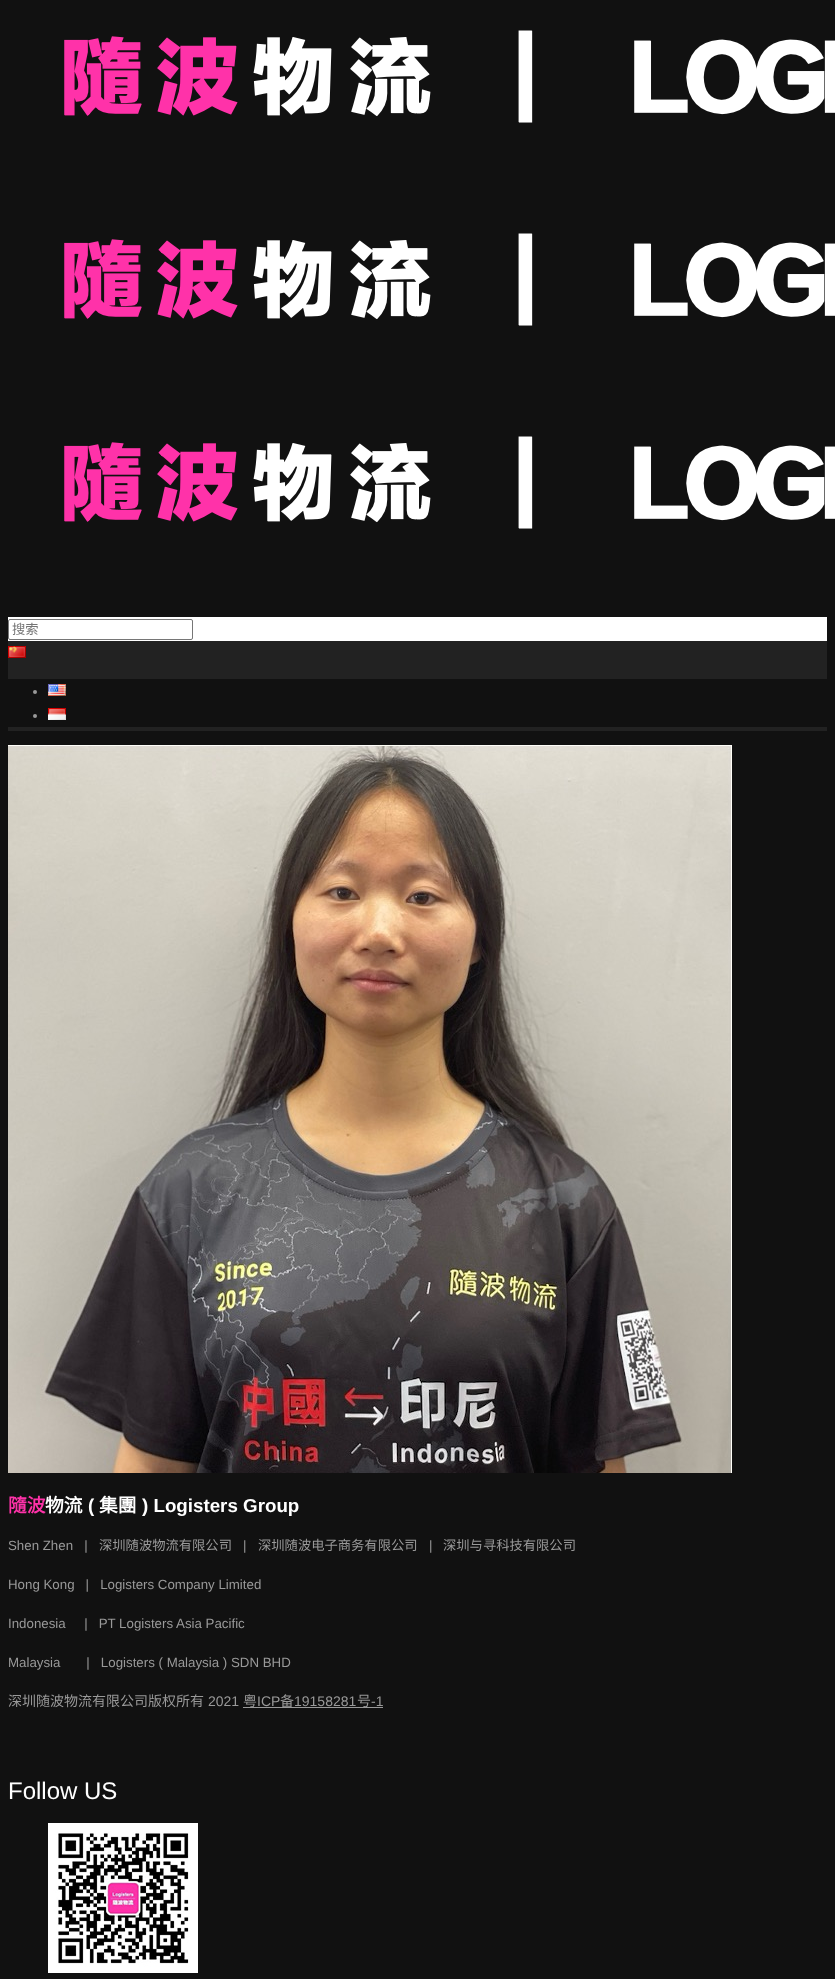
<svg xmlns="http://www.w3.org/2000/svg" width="835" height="1979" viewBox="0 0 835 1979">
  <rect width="100%" height="100%" fill="rgb(17,17,17)"/>
  <image x="64" y="30" width="771" height="93" href="pic1.png"/>
  <image x="64" y="233" width="771" height="93" href="pic1.png"/>
  <image x="64" y="436" width="771" height="93" href="pic1.png"/>
  <rect x="8" y="617" width="819" height="24" fill="rgb(255,255,255)"/>
  <rect x="8.5" y="619.5" width="184" height="20" rx="1.5" fill="none" stroke="rgb(118,118,118)"/>
  <text x="12" y="634" font-family="Noto Sans CJK SC" font-size="13.3" fill="rgb(117,117,117)">搜索</text>
  <rect x="8" y="641" width="819" height="90" fill="rgb(34,34,34)"/>
  <image x="8" y="646" width="18" height="12" href="pic2.png"/>
  <rect x="8" y="679" width="819" height="48" fill="rgb(17,17,17)"/>
  <circle cx="35" cy="692" r="2" fill="rgb(153,153,153)"/>
  <image x="48" y="684" width="18" height="12" href="pic3.png"/>
  <circle cx="35" cy="716" r="2" fill="rgb(153,153,153)"/>
  <image x="48" y="708" width="18" height="12" href="pic4.png"/>
  <image x="8" y="745" width="724" height="728" href="pic5.png"/>
  <text x="8" y="1512" font-family="Noto Sans CJK SC" font-size="18.75" font-weight="bold" fill="rgb(255,50,169)">隨波</text>
  <text x="45" y="1512" font-family="Noto Sans CJK SC" font-size="18.75" font-weight="bold" fill="rgb(255,255,255)">物流</text>
  <text x="88" y="1512" font-family="Liberation Sans" font-size="18.75" font-weight="bold" fill="rgb(255,255,255)">(</text>
  <text x="99" y="1512" font-family="Noto Sans CJK SC" font-size="18.75" font-weight="bold" fill="rgb(255,255,255)">集團</text>
  <text x="142" y="1512" font-family="Liberation Sans" font-size="18.75" font-weight="bold" fill="rgb(255,255,255)">) Logisters Group</text>
  <text x="8" y="1550" font-family="Liberation Sans" font-size="13.3" fill="rgb(153,153,153)" xml:space="preserve">Shen Zhen   |</text>
  <text x="99" y="1550" font-family="Noto Sans CJK SC" font-size="13.3" fill="rgb(153,153,153)">深圳随波物流有限公司</text>
  <text x="243" y="1550" font-family="Liberation Sans" font-size="13.3" fill="rgb(153,153,153)">|</text>
  <text x="258" y="1550" font-family="Noto Sans CJK SC" font-size="13.3" fill="rgb(153,153,153)">深圳随波电子商务有限公司</text>
  <text x="429" y="1550" font-family="Liberation Sans" font-size="13.3" fill="rgb(153,153,153)">|</text>
  <text x="443" y="1550" font-family="Noto Sans CJK SC" font-size="13.3" fill="rgb(153,153,153)">深圳与寻科技有限公司</text>
  <g font-family="Liberation Sans" font-size="13.3" fill="rgb(153,153,153)">
    <text x="8" y="1589" xml:space="preserve">Hong Kong   |   Logisters Company Limited</text>
    <text x="8" y="1628" xml:space="preserve">Indonesia     |   PT Logisters Asia Pacific</text>
    <text x="8" y="1667" xml:space="preserve">Malaysia       |   Logisters ( Malaysia ) SDN BHD</text>
  </g>
  <text x="8" y="1706" font-family="Noto Sans CJK SC" font-size="14" fill="rgb(153,153,153)">深圳随波物流有限公司版权所有</text>
  <text x="208" y="1706" font-family="Liberation Sans" font-size="14" fill="rgb(153,153,153)">2021</text>
  <text x="243" y="1706" font-family="Noto Sans CJK SC" font-size="14" fill="rgb(153,153,153)">粤</text>
  <text x="257" y="1706" font-family="Liberation Sans" font-size="14" fill="rgb(153,153,153)">ICP</text>
  <rect x="243" y="1707" width="140" height="1" fill="rgb(153,153,153)"/>
  <text x="280" y="1706" font-family="Noto Sans CJK SC" font-size="14" fill="rgb(153,153,153)">备</text>
  <text x="294" y="1706" font-family="Liberation Sans" font-size="14" fill="rgb(153,153,153)">19158281</text>
  <text x="357" y="1706" font-family="Noto Sans CJK SC" font-size="14" fill="rgb(153,153,153)">号</text>
  <text x="371" y="1706" font-family="Liberation Sans" font-size="14" fill="rgb(153,153,153)">-1</text>
  <text x="8" y="1799" font-family="Liberation Sans" font-size="24" fill="rgb(255,255,255)">Follow US</text>
  <image x="48" y="1823" width="150" height="150" href="pic6.png"/>
</svg>
